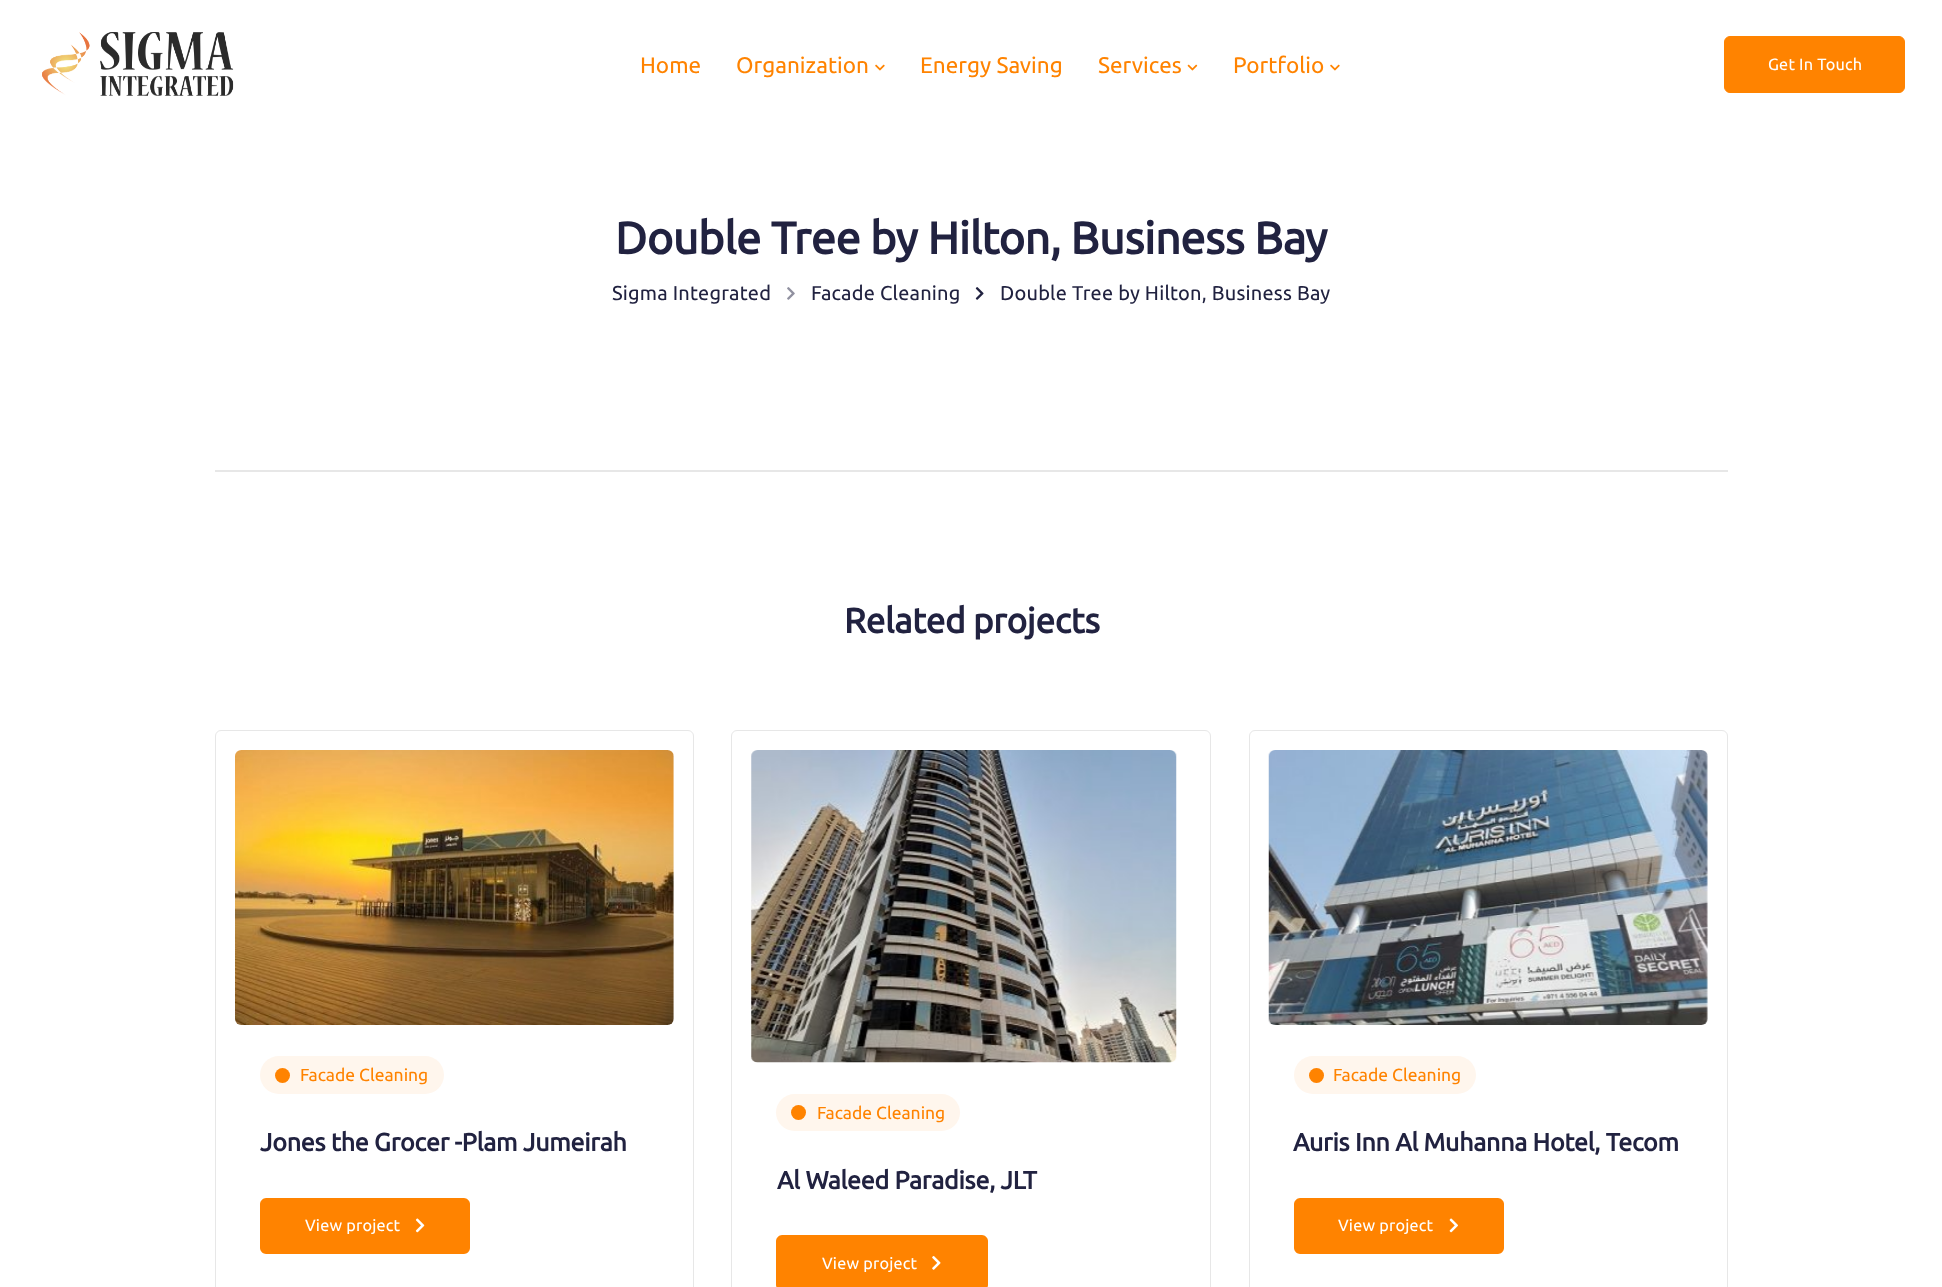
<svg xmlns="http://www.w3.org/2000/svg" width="1942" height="1287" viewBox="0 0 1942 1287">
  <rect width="100%" height="100%" fill="rgb(255,255,255)"/>
  <image x="42" y="32" width="192" height="64" href="pic1.png"/>
  <g font-family="Ubuntu" font-size="22.5" fill="rgb(255,131,0)">
    <text x="640" y="73">Home</text>
    <text x="736" y="73">Organization</text>
  </g>
  <image x="875" y="64" width="10" height="7" href="pic2.png"/>
  <g font-family="Ubuntu" font-size="22.5" fill="rgb(255,131,0)">
    <text x="920" y="73">Energy Saving</text>
    <text x="1098" y="73">Services</text>
  </g>
  <image x="1187" y="64" width="11" height="7" href="pic3.png"/>
  <text x="1233" y="73" font-family="Ubuntu" font-size="22.5" fill="rgb(255,131,0)">Portfolio</text>
  <image x="1330" y="64" width="10" height="7" href="pic2.png"/>
  <rect x="1724.5" y="36.5" width="180" height="56" rx="5.5" fill="rgb(255,131,0)" stroke="rgb(255,131,0)"/>
  <text x="1768" y="70" font-family="Ubuntu" font-size="16.25" letter-spacing="0.2" fill="rgb(255,255,255)">Get In Touch</text>
  <rect x="215" y="470" width="1513" height="2" fill="rgb(231,231,231)"/>
  <text x="615" y="254" font-family="Ubuntu" font-size="45" font-weight="bold" letter-spacing="-0.45" fill="rgb(33,34,64)">Double Tree by Hilton, Business Bay</text>
  <text x="612" y="300" font-family="Ubuntu" font-size="20" letter-spacing="0.2" fill="rgb(33,34,64)">Sigma Integrated</text>
  <image x="787" y="287" width="8" height="13" href="pic4.png"/>
  <text x="811" y="300" font-family="Ubuntu" font-size="20" letter-spacing="0.2" fill="rgb(33,34,64)">Facade Cleaning</text>
  <image x="975" y="287" width="9" height="13" href="pic5.png"/>
  <text x="1000" y="300" font-family="Ubuntu" font-size="20" letter-spacing="0.2" fill="rgb(33,34,64)">Double Tree by Hilton, Business Bay</text>
  <text x="844" y="633" font-family="Ubuntu" font-size="35" font-weight="bold" letter-spacing="-0.3" fill="rgb(33,34,64)">Related projects</text>
  <rect x="215.5" y="730.5" width="478" height="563" rx="5.5" fill="none" stroke="rgb(231,231,231)"/>
  <image x="235" y="750" width="439" height="275" href="pic6.png"/>
  <rect x="260" y="1056" width="184" height="38" rx="19" fill="rgb(255,246,237)"/>
  <circle cx="282.5" cy="1075.5" r="7.5" fill="rgb(255,131,0)"/>
  <text x="300" y="1081" font-family="Ubuntu" font-size="17.5" fill="rgb(255,131,0)">Facade Cleaning</text>
  <text x="260" y="1151" font-family="Ubuntu" font-size="25" font-weight="bold" letter-spacing="-0.25" fill="rgb(33,34,64)">Jones the Grocer -Plam Jumeirah</text>
  <path d="M266 1198H464C467 1198 470 1201 470 1204V1248C470 1251 467 1254 464 1254H266C263 1254 260 1251 260 1248V1204C260 1201 263 1198 266 1198Z" fill="rgb(255,131,0)"/>
  <text x="305" y="1231" font-family="Ubuntu" font-size="16.25" letter-spacing="0.2" fill="rgb(255,255,255)">View project</text>
  <image x="415" y="1218" width="10" height="15" href="pic7.png"/>
  <rect x="731.5" y="730.5" width="479" height="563" rx="5.5" fill="none" stroke="rgb(231,231,231)"/>
  <image x="751" y="750" width="426" height="313" href="pic8.png"/>
  <rect x="776" y="1094" width="184" height="37" rx="18.5" fill="rgb(255,246,237)"/>
  <circle cx="798.5" cy="1112.5" r="7.5" fill="rgb(255,131,0)"/>
  <text x="817" y="1119" font-family="Ubuntu" font-size="17.5" fill="rgb(255,131,0)">Facade Cleaning</text>
  <text x="777" y="1189" font-family="Ubuntu" font-size="25" font-weight="bold" letter-spacing="-0.25" fill="rgb(33,34,64)">Al Waleed Paradise, JLT</text>
  <path d="M782 1235H982C985 1235 988 1238 988 1241V1285C988 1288 985 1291 982 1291H782C779 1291 776 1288 776 1285V1241C776 1238 779 1235 782 1235Z" fill="rgb(255,131,0)"/>
  <text x="822" y="1269" font-family="Ubuntu" font-size="16.25" letter-spacing="0.2" fill="rgb(255,255,255)">View project</text>
  <image x="932" y="1256" width="9" height="14" href="pic9.png"/>
  <rect x="1249.5" y="730.5" width="478" height="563" rx="5.5" fill="none" stroke="rgb(231,231,231)"/>
  <image x="1268" y="750" width="440" height="275" href="pic10.png"/>
  <rect x="1294" y="1056" width="182" height="38" rx="19" fill="rgb(255,246,237)"/>
  <circle cx="1316.5" cy="1075.5" r="7.5" fill="rgb(255,131,0)"/>
  <text x="1333" y="1081" font-family="Ubuntu" font-size="17.5" fill="rgb(255,131,0)">Facade Cleaning</text>
  <text x="1293" y="1151" font-family="Ubuntu" font-size="25" font-weight="bold" letter-spacing="-0.25" fill="rgb(33,34,64)">Auris Inn Al Muhanna Hotel, Tecom</text>
  <path d="M1300 1198H1498C1501 1198 1504 1201 1504 1204V1248C1504 1251 1501 1254 1498 1254H1300C1297 1254 1294 1251 1294 1248V1204C1294 1201 1297 1198 1300 1198Z" fill="rgb(255,131,0)"/>
  <text x="1338" y="1231" font-family="Ubuntu" font-size="16.25" letter-spacing="0.2" fill="rgb(255,255,255)">View project</text>
  <image x="1449" y="1218" width="9" height="15" href="pic11.png"/>
</svg>
